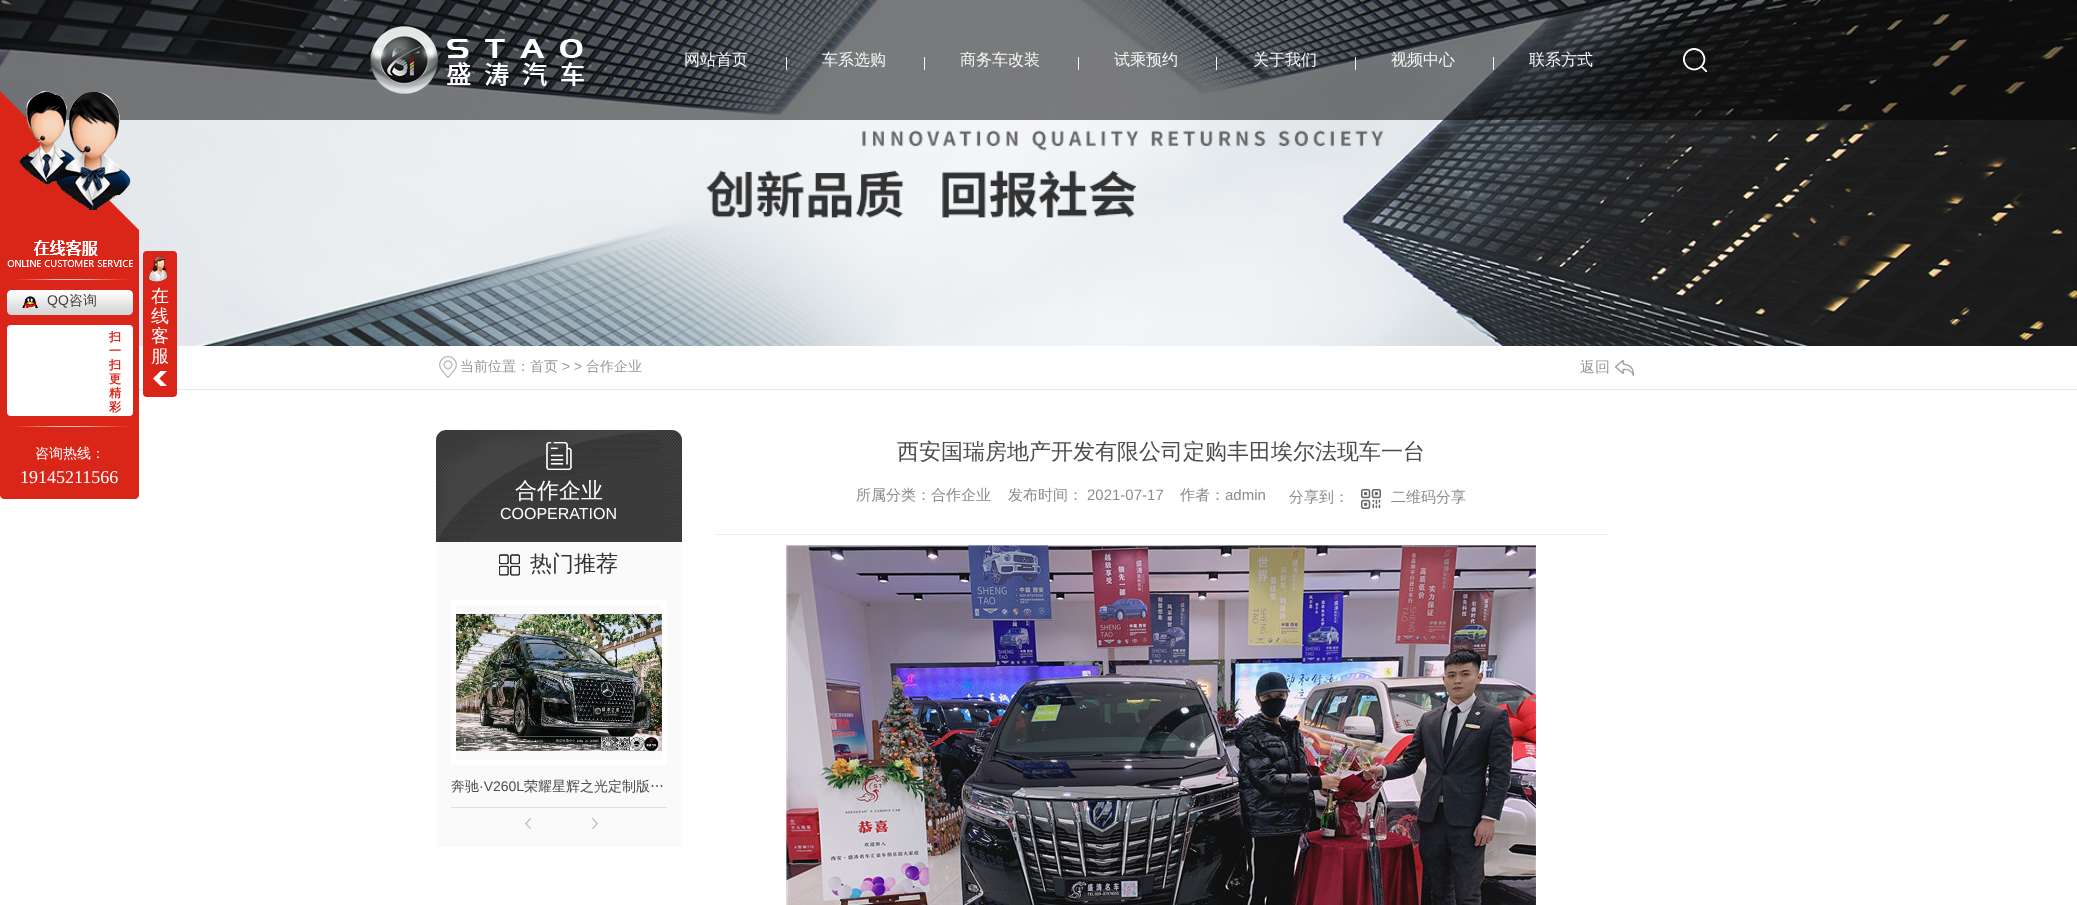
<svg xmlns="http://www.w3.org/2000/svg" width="2077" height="905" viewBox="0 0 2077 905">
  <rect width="100%" height="100%" fill="rgb(255,255,255)"/>
  <image x="0" y="0" width="2077" height="346" href="pic1.png"/>
  <rect x="0" y="0" width="2077" height="120" fill="rgba(0,0,0,0.5)"/>
  <image x="370" y="26" width="214" height="68" href="pic2.png"/>
  <text x="684" y="65" font-family="WenQuanYi Zen Hei" font-size="16" font-weight="500" fill="rgb(246,246,246)">网站首页</text>
  <rect x="786" y="57" width="1" height="13" fill="rgb(246,246,246)"/>
  <text x="822" y="65" font-family="WenQuanYi Zen Hei" font-size="16" font-weight="500" fill="rgb(246,246,246)">车系选购</text>
  <rect x="924" y="57" width="1" height="13" fill="rgb(246,246,246)"/>
  <text x="960" y="65" font-family="WenQuanYi Zen Hei" font-size="16" font-weight="500" fill="rgb(246,246,246)">商务车改装</text>
  <rect x="1078" y="57" width="1" height="13" fill="rgb(246,246,246)"/>
  <text x="1114" y="65" font-family="WenQuanYi Zen Hei" font-size="16" font-weight="500" fill="rgb(246,246,246)">试乘预约</text>
  <rect x="1216" y="57" width="1" height="13" fill="rgb(246,246,246)"/>
  <text x="1253" y="65" font-family="WenQuanYi Zen Hei" font-size="16" font-weight="500" fill="rgb(246,246,246)">关于我们</text>
  <rect x="1355" y="57" width="1" height="13" fill="rgb(246,246,246)"/>
  <text x="1391" y="65" font-family="WenQuanYi Zen Hei" font-size="16" font-weight="500" fill="rgb(246,246,246)">视频中心</text>
  <rect x="1493" y="57" width="1" height="13" fill="rgb(246,246,246)"/>
  <text x="1529" y="65" font-family="WenQuanYi Zen Hei" font-size="16" font-weight="500" fill="rgb(246,246,246)">联系方式</text>
  <image x="1683" y="48" width="24" height="24" href="pic3.png"/>
  <path d="M0 91L139 230H0Z" fill="rgb(218,37,25)"/>
  <image x="19" y="91" width="112" height="119" href="pic4.png"/>
  <path d="M0 230H139V495C139 497 137 499 135 499H4C2 499 0 497 0 495Z" fill="rgb(218,37,25)"/>
  <image x="7" y="240" width="126" height="27" href="pic5.png"/>
  <image x="12" y="279" width="118" height="1" href="pic6.png"/>
  <image x="7" y="290" width="126" height="25" href="pic7.png"/>
  <image x="22" y="296" width="16" height="12" href="pic8.png"/>
  <text x="47" y="305" font-family="Liberation Sans" font-size="14" fill="rgb(64,64,64)">QQ</text>
  <text x="69" y="305" font-family="WenQuanYi Zen Hei" font-size="14" font-weight="500" fill="rgb(64,64,64)">咨询</text>
  <rect x="7" y="325" width="126" height="91" rx="4" fill="rgb(255,255,255)"/>
  <g font-family="WenQuanYi Zen Hei" font-size="12" font-weight="bold" fill="rgb(218,37,25)">
    <text>
      <tspan x="109" y="341">扫</tspan>
      <tspan x="109" y="355">一</tspan>
      <tspan x="109" y="369">扫</tspan>
      <tspan x="109" y="383">更</tspan>
      <tspan x="109" y="397">精</tspan>
      <tspan x="109" y="411">彩</tspan>
    </text>
  </g>
  <image x="12" y="426" width="118" height="1" href="pic6.png"/>
  <text x="35" y="458" font-family="WenQuanYi Zen Hei" font-size="14" font-weight="500" fill="rgb(255,255,255)">咨询热线：</text>
  <text x="20" y="483" font-family="Liberation Serif" font-size="18" fill="rgb(255,255,255)">19145211566</text>
  <rect x="139" y="389" width="1938" height="1" fill="rgb(230,230,230)"/>
  <rect x="143" y="251" width="34" height="146" rx="4" fill="rgb(218,37,25)"/>
  <image x="153" y="371" width="14" height="15" href="pic9.png"/>
  <image x="147" y="256" width="21" height="26" href="pic10.png"/>
  <g font-family="WenQuanYi Zen Hei" font-size="18" font-weight="500" fill="rgb(255,255,255)">
    <text>
      <tspan x="151" y="302">在</tspan>
      <tspan x="151" y="322">线</tspan>
      <tspan x="151" y="342">客</tspan>
      <tspan x="151" y="362">服</tspan>
    </text>
  </g>
  <image x="439" y="356" width="18" height="22" href="pic11.png"/>
  <text x="460" y="371" font-family="WenQuanYi Zen Hei" font-size="14" font-weight="500" fill="rgb(153,153,153)">当前位置：首页</text>
  <text x="562" y="371" font-family="Liberation Sans" font-size="14" fill="rgb(153,153,153)">&gt; &gt;</text>
  <text x="586" y="371" font-family="WenQuanYi Zen Hei" font-size="14" font-weight="500" fill="rgb(153,153,153)">合作企业</text>
  <text x="1580" y="372" font-family="WenQuanYi Zen Hei" font-size="15" font-weight="500" fill="rgb(153,153,153)">返回</text>
  <image x="1615" y="360" width="19" height="16" href="pic12.png"/>
  <text x="897" y="459" font-family="WenQuanYi Zen Hei" font-size="22" font-weight="500" fill="rgb(76,76,76)">西安国瑞房地产开发有限公司定购丰田埃尔法现车一台</text>
  <g font-family="WenQuanYi Zen Hei" font-size="15" font-weight="500" fill="rgb(140,140,140)">
    <text x="856" y="500">所属分类：合作企业</text>
    <text x="1008" y="500">发布时间：</text>
  </g>
  <text x="1087" y="500" font-family="Liberation Sans" font-size="15" fill="rgb(140,140,140)">2021-07-17</text>
  <text x="1180" y="500" font-family="WenQuanYi Zen Hei" font-size="15" font-weight="500" fill="rgb(140,140,140)">作者：</text>
  <text x="1225" y="500" font-family="Liberation Sans" font-size="15" fill="rgb(140,140,140)">admin</text>
  <text x="1289" y="502" font-family="WenQuanYi Zen Hei" font-size="15" font-weight="500" fill="rgb(140,140,140)">分享到：</text>
  <image x="1361" y="489" width="20" height="20" href="pic13.png"/>
  <text x="1391" y="502" font-family="WenQuanYi Zen Hei" font-size="15" font-weight="500" fill="rgb(140,140,140)">二维码分享</text>
  <rect x="715" y="534" width="892" height="1" fill="rgb(237,237,237)"/>
  <image x="786" y="545" width="750" height="360" href="pic14.png"/>
  <path d="M446 430H672C677.5 430 682 434.5 682 440V542H436V440C436 434.5 440.5 430 446 430Z" fill="rgb(51,51,51)"/>
  <image x="436" y="430" width="246" height="112" href="pic15.png"/>
  <image x="546" y="442" width="26" height="28" href="pic16.png"/>
  <text x="515" y="498" font-family="WenQuanYi Zen Hei" font-size="22" font-weight="500" fill="rgb(255,255,255)">合作企业</text>
  <text x="500" y="519" font-family="Liberation Sans" font-size="16" fill="rgb(255,255,255)">COOPERATION</text>
  <rect x="436" y="542" width="246" height="305" fill="rgb(250,250,250)"/>
  <image x="499" y="554" width="21" height="22" href="pic17.png"/>
  <text x="530" y="571" font-family="WenQuanYi Zen Hei" font-size="22" font-weight="500" fill="rgb(51,51,51)">热门推荐</text>
  <rect x="453.5" y="602.5" width="211" height="160" fill="none" stroke="rgb(255,255,255)" stroke-width="5"/>
  <image x="456" y="614" width="206" height="137" href="pic18.png"/>
  <rect x="451" y="807" width="216" height="1" fill="rgb(222,222,221)"/>
  <text x="451" y="791" font-family="WenQuanYi Zen Hei" font-size="14" font-weight="500" fill="rgb(76,76,76)">奔驰</text>
  <text x="479" y="791" font-family="Liberation Sans" font-size="14" fill="rgb(76,76,76)">·V260L</text>
  <text x="524" y="791" font-family="WenQuanYi Zen Hei" font-size="14" font-weight="500" fill="rgb(76,76,76)">荣耀星辉之光定制版…</text>
  <image x="525" y="818" width="6" height="11" href="pic19.png"/>
  <image x="592" y="818" width="6" height="11" href="pic20.png"/>
</svg>
